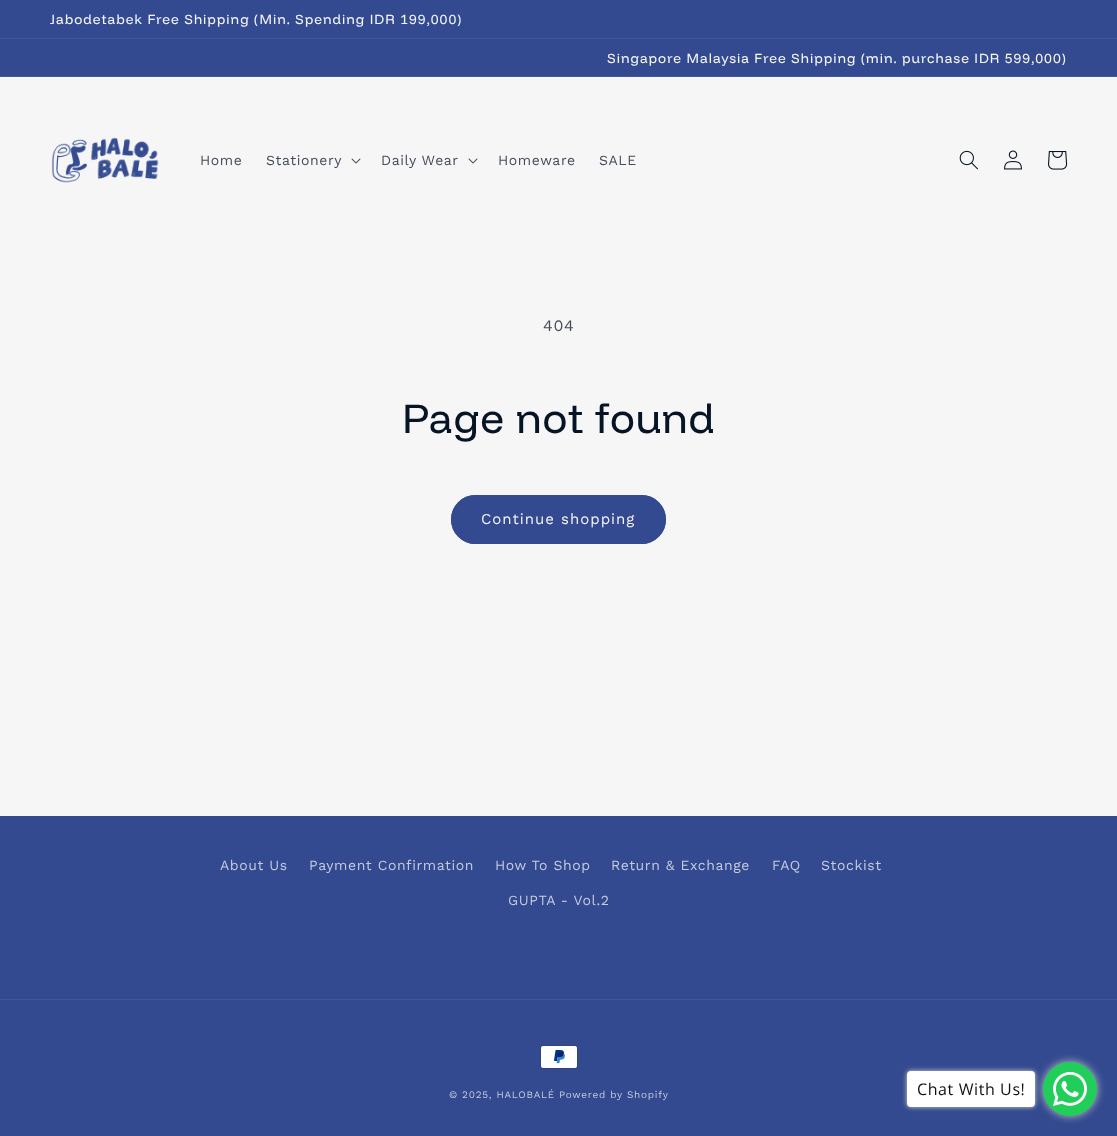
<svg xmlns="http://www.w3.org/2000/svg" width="1117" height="1136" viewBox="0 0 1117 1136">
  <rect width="100%" height="100%" fill="rgb(246,246,246)"/>
  <rect x="0" y="0" width="1117" height="38" fill="rgb(51,74,144)"/>
  <rect x="0" y="38" width="1117" height="1" fill="rgb(67,88,152)"/>
  <text x="50" y="24" font-family="Funnel Display" font-size="13.65" letter-spacing="1" fill="rgb(246,246,246)">Jabodetabek Free Shipping (Min. Spending IDR 199,000)</text>
  <rect x="0" y="39" width="1117" height="37" fill="rgb(51,74,144)"/>
  <rect x="0" y="76" width="1117" height="1" fill="rgb(67,88,152)"/>
  <text x="607" y="63" font-family="Funnel Display" font-size="13.65" letter-spacing="1" fill="rgb(246,246,246)">Singapore Malaysia Free Shipping (min. purchase IDR 599,000)</text>
  <image x="51" y="137" width="108" height="46" href="pic1.png"/>
  <g font-family="Work Sans" font-size="14" letter-spacing="0.6" fill="rgb(67,77,89)">
    <text x="200" y="165">Home</text>
    <text x="266" y="165">Stationery</text>
  </g>
  <image x="351" y="158" width="10" height="6" href="pic2.png"/>
  <text x="381" y="165" font-family="Work Sans" font-size="14" letter-spacing="0.6" fill="rgb(67,77,89)">Daily Wear</text>
  <image x="468" y="158" width="10" height="6" href="pic2.png"/>
  <g font-family="Work Sans" font-size="14" letter-spacing="0.6" fill="rgb(67,77,89)">
    <text x="498" y="165">Homeware</text>
    <text x="599" y="165">SALE</text>
  </g>
  <image x="959" y="150" width="19" height="20" href="pic3.png"/>
  <image x="1004" y="150" width="18" height="20" href="pic4.png"/>
  <image x="1048" y="151" width="20" height="19" href="pic5.png"/>
  <text x="543" y="331" font-family="Work Sans" font-size="16" letter-spacing="0.6" fill="rgb(67,77,89)">404</text>
  <text x="402" y="433" font-family="Funnel Display" font-size="42" letter-spacing="0.6" fill="rgb(7,20,37)">Page not found</text>
  <rect x="451" y="495" width="215" height="49" rx="24.5" fill="rgb(51,74,144)"/>
  <rect x="452" y="496" width="213" height="47" rx="23.5" fill="none" stroke="rgb(51,74,144)" stroke-width="2"/>
  <text x="481" y="524" font-family="Work Sans" font-size="15" letter-spacing="1" fill="rgb(246,246,246)">Continue shopping</text>
  <rect x="0" y="816" width="1117" height="320" fill="rgb(51,74,144)"/>
  <g font-family="Work Sans" font-size="14" letter-spacing="0.6" fill="rgb(197,203,221)">
    <text x="220" y="870">About Us</text>
    <text x="309" y="870">Payment Confirmation</text>
    <text x="495" y="870">How To Shop</text>
    <text x="611" y="870">Return &amp; Exchange</text>
    <text x="772" y="870">FAQ</text>
    <text x="821" y="870">Stockist</text>
    <text x="508" y="905">GUPTA - Vol.2</text>
  </g>
  <rect x="0" y="999" width="1117" height="1" fill="rgb(67,88,152)"/>
  <image x="540" y="1045" width="38" height="24" href="pic6.png"/>
  <g font-family="Work Sans" font-size="10" letter-spacing="0.75" fill="rgb(197,203,221)">
    <text x="449" y="1098">© 2025, HALOBALÉ</text>
    <text x="559" y="1098">Powered by Shopify</text>
  </g>
  <rect x="907" y="1071" width="128" height="36" rx="4" fill="rgb(211,211,211)" filter="blur(2.5px)"/>
  <rect x="907" y="1071" width="128" height="36" rx="4" fill="rgb(255,255,255)"/>
  <text x="917" y="1095" font-family="Open Sans" font-size="16" letter-spacing="0.6" fill="rgb(17,17,17)">Chat With Us!</text>
  <rect x="1043" y="1062" width="54" height="54" rx="27" fill="rgb(194,194,194)" filter="blur(4px)"/>
  <circle cx="1070" cy="1089" r="27" fill="rgb(34,206,90)"/>
  <image x="1053" y="1072" width="34" height="34" href="pic7.png"/>
</svg>
